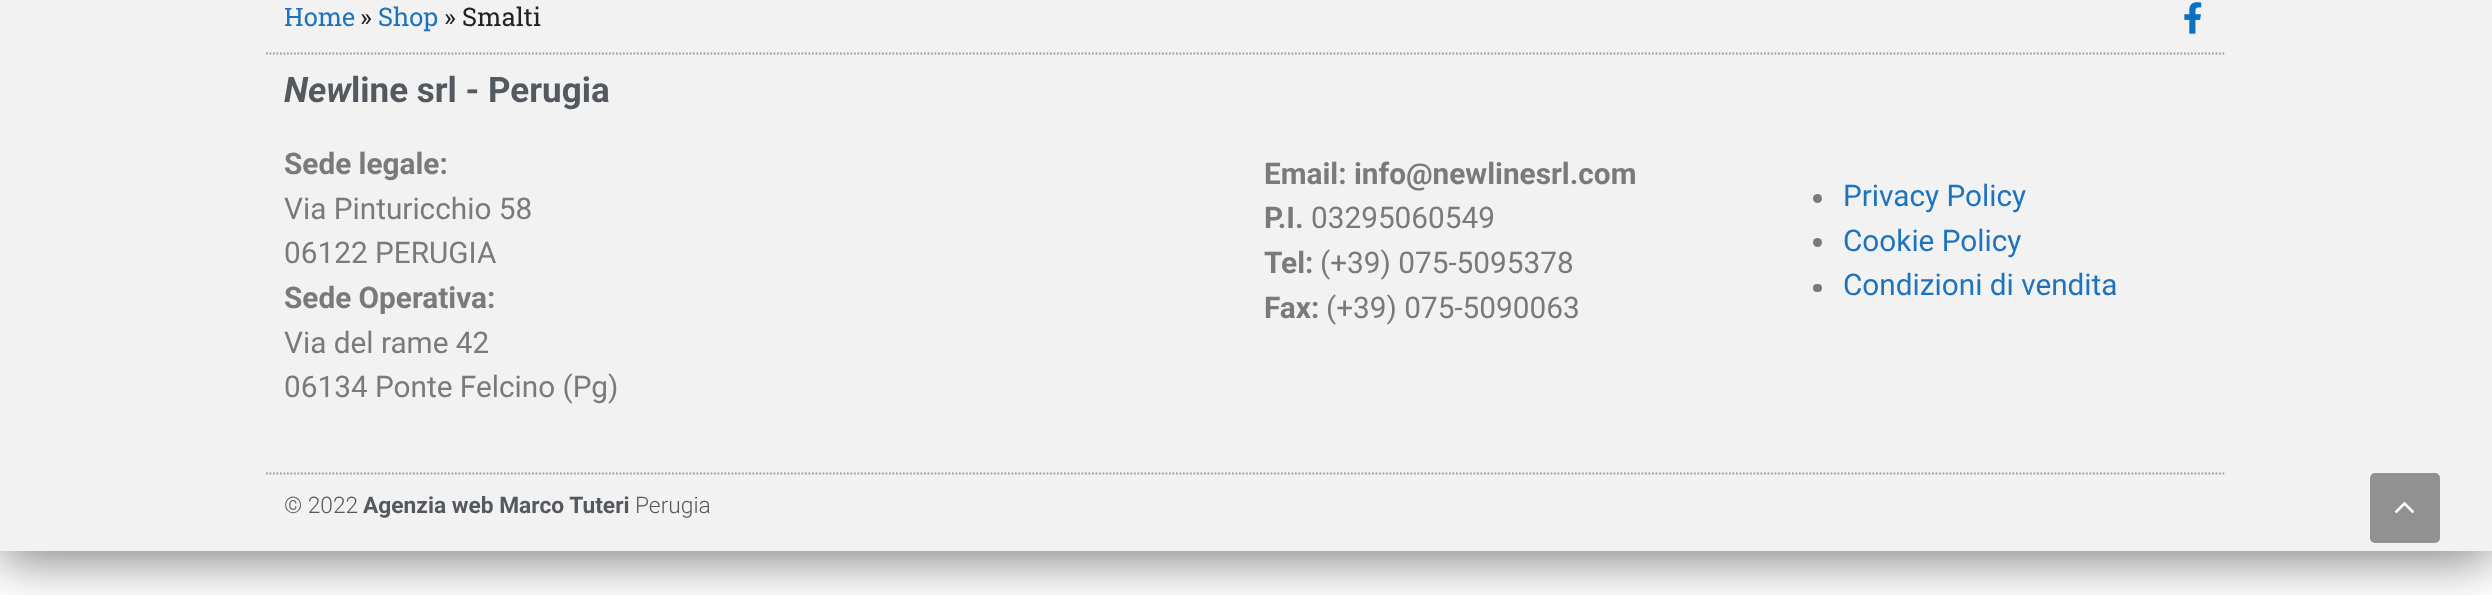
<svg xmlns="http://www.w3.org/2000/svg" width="2492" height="595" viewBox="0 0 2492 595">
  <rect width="100%" height="100%" fill="rgb(255,255,255)"/>
  <rect x="0" y="-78" width="2492" height="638" fill="rgba(0,0,0,0.5)" filter="blur(26px)"/>
  <rect x="0" y="0" width="2492" height="551" fill="rgb(242,242,242)"/>
  <path d="M266 53.5H2226" fill="none" stroke="rgb(155,155,155)" stroke-width="1.8" stroke-dasharray="1.75 1.75"/>
  <text x="284" y="26" font-family="Roboto Slab" font-size="25.5" fill="rgb(30,115,190)">Home</text>
  <text x="360" y="26" font-family="Roboto Slab" font-size="25.5" fill="rgb(34,34,34)">»</text>
  <text x="378" y="26" font-family="Roboto Slab" font-size="25.5" fill="rgb(30,115,190)">Shop</text>
  <text x="444" y="26" font-family="Roboto Slab" font-size="25.5" fill="rgb(34,34,34)">» Smalti</text>
  <image x="2184" y="2" width="18" height="32" href="pic1.png"/>
  <text x="284" y="102" font-family="Roboto" font-size="35" font-weight="bold" font-style="italic" fill="rgb(84,89,95)">New</text>
  <text x="351" y="102" font-family="Roboto" font-size="35" font-weight="bold" fill="rgb(84,89,95)">line srl - Perugia</text>
  <text x="284" y="174" font-family="Roboto" font-size="29.75" font-weight="bold" fill="rgb(122,122,122)">Sede legale:</text>
  <g font-family="Roboto" font-size="29.75" fill="rgb(122,122,122)">
    <text>
      <tspan x="284" y="219">Via Pinturicchio 58</tspan>
      <tspan x="284" y="263">06122 PERUGIA</tspan>
    </text>
  </g>
  <text x="284" y="308" font-family="Roboto" font-size="29.75" font-weight="bold" fill="rgb(122,122,122)">Sede Operativa:</text>
  <g font-family="Roboto" font-size="29.75" fill="rgb(122,122,122)">
    <text>
      <tspan x="284" y="353">Via del rame 42</tspan>
      <tspan x="284" y="397">06134 Ponte Felcino (Pg)</tspan>
    </text>
  </g>
  <g font-family="Roboto" font-size="29.75" font-weight="bold" fill="rgb(122,122,122)">
    <text>
      <tspan x="1264" y="184">Email: info@newlinesrl.com</tspan>
      <tspan x="1264" y="228">P.I.</tspan>
    </text>
  </g>
  <text x="1311" y="228" font-family="Roboto" font-size="29.75" fill="rgb(122,122,122)">03295060549</text>
  <text x="1264" y="273" font-family="Roboto" font-size="29.75" font-weight="bold" fill="rgb(122,122,122)">Tel:</text>
  <text x="1320" y="273" font-family="Roboto" font-size="29.75" fill="rgb(122,122,122)">(+39) 075-5095378</text>
  <text x="1264" y="318" font-family="Roboto" font-size="29.75" font-weight="bold" fill="rgb(122,122,122)">Fax:</text>
  <text x="1326" y="318" font-family="Roboto" font-size="29.75" fill="rgb(122,122,122)">(+39) 075-5090063</text>
  <circle cx="1817.5" cy="198.5" r="4.5" fill="rgb(122,122,122)"/>
  <text x="1843" y="206" font-family="Roboto" font-size="29.75" fill="rgb(30,115,190)">Privacy Policy</text>
  <circle cx="1817.5" cy="242.5" r="4.5" fill="rgb(122,122,122)"/>
  <text x="1843" y="251" font-family="Roboto" font-size="29.75" fill="rgb(30,115,190)">Cookie Policy</text>
  <rect x="1813" y="284" width="9" height="8" rx="4" fill="rgb(122,122,122)"/>
  <text x="1843" y="295" font-family="Roboto" font-size="29.75" fill="rgb(30,115,190)">Condizioni di vendita</text>
  <path d="M266 473.5H2226" fill="none" stroke="rgb(155,155,155)" stroke-width="1.8" stroke-dasharray="1.75 1.75"/>
  <text x="284" y="513" font-family="Roboto" font-size="22.75" font-weight="300" fill="rgb(84,89,95)">© 2022</text>
  <text x="363" y="513" font-family="Roboto" font-size="22.75" font-weight="bold" fill="rgb(84,89,95)">Agenzia web Marco Tuteri</text>
  <text x="635" y="513" font-family="Roboto" font-size="22.75" font-weight="300" fill="rgb(84,89,95)">Perugia</text>
  <rect x="2370" y="473" width="70" height="70" rx="5" fill="rgb(145,145,145)"/>
  <image x="2394" y="501" width="21" height="13" href="pic2.png"/>
</svg>
